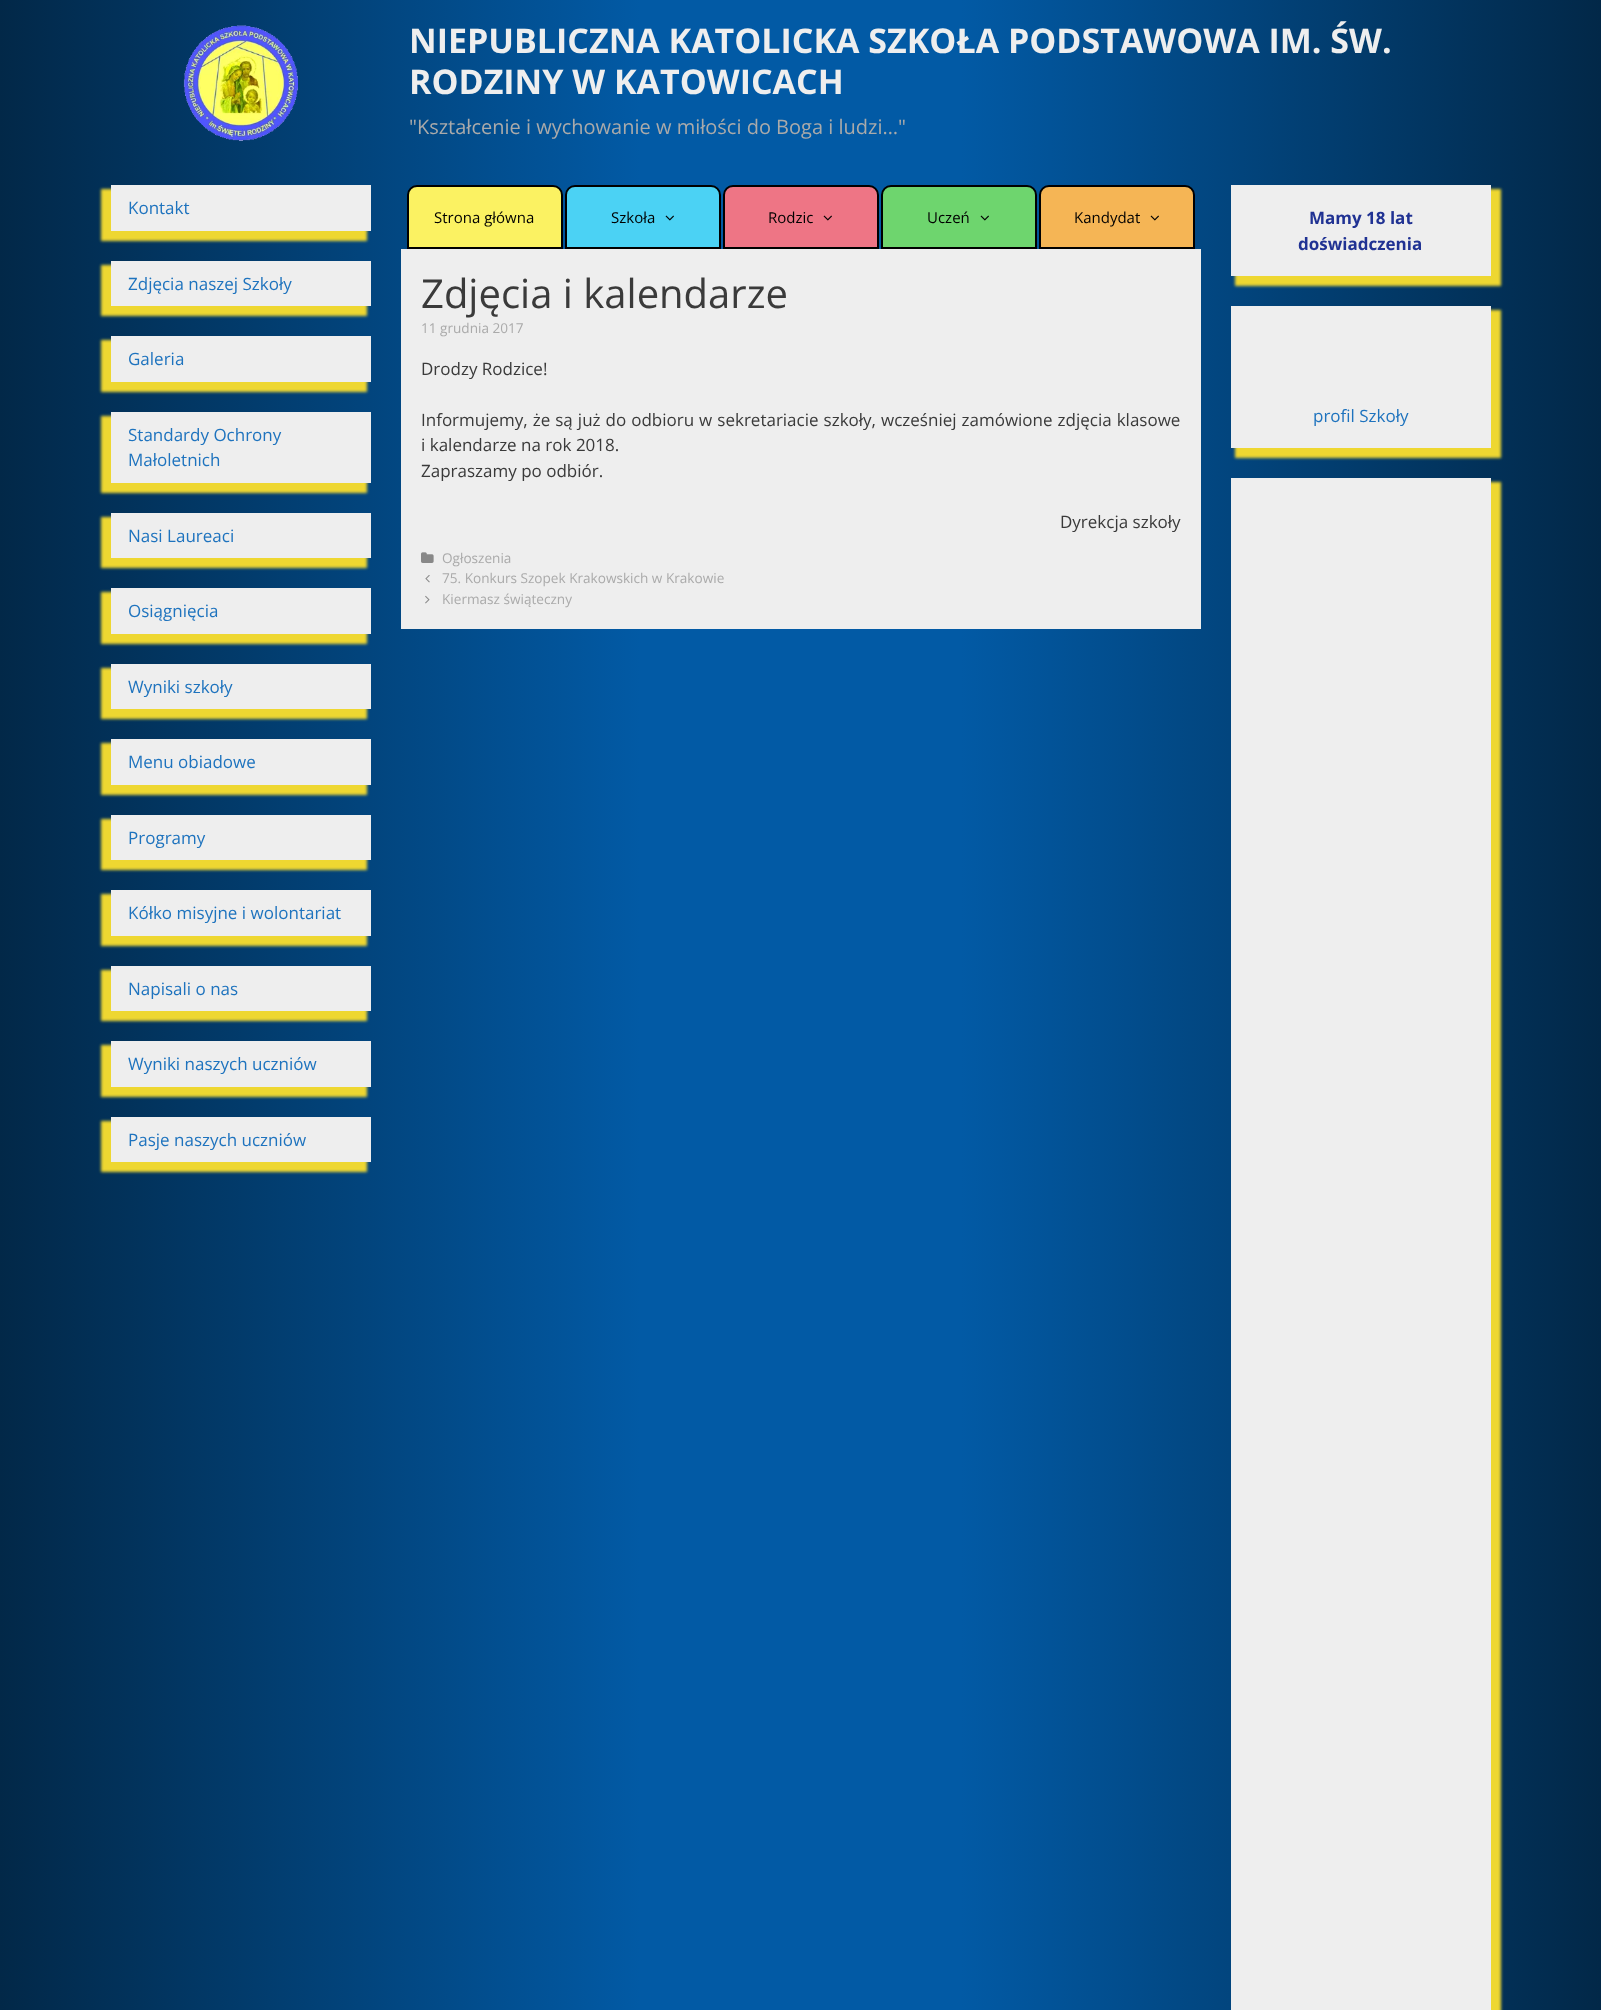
<svg xmlns="http://www.w3.org/2000/svg" width="1601" height="2010" viewBox="0 0 1601 2010">
  <defs>
    <linearGradient id="g1" gradientUnits="userSpaceOnUse" x1="0" y1="1506" x2="1601" y2="1506"><stop offset="0" stop-color="rgb(2,40,72)"/><stop offset="0.4" stop-color="rgb(2,90,165)"/><stop offset="0.6" stop-color="rgb(2,90,165)"/><stop offset="1" stop-color="rgb(2,40,72)"/></linearGradient>
  </defs>
  <rect width="100%" height="100%" fill="rgb(255,255,255)"/>
  <rect x="0" y="0" width="1601" height="2010" fill="url(#g1)"/>
  <image x="183" y="25" width="115" height="116" href="pic1.png"/>
  <g font-family="Open Sans" font-size="34" font-weight="bold" fill="rgb(238,238,238)">
    <text>
      <tspan x="409" y="53">NIEPUBLICZNA KATOLICKA SZKOŁA PODSTAWOWA IM. ŚW.</tspan>
      <tspan x="409" y="94">RODZINY W KATOWICACH</tspan>
    </text>
  </g>
  <text x="409" y="134" font-family="Open Sans" font-size="20" fill="rgb(170,170,170)">"Kształcenie i wychowanie w miłości do Boga i ludzi…"</text>
  <rect x="101" y="189" width="266" height="52" fill="rgb(238,215,49)" filter="blur(1.5px)"/>
  <rect x="111" y="185" width="260" height="46" fill="rgb(238,238,238)"/>
  <text x="128" y="214" font-family="Open Sans" font-size="17" fill="rgb(30,115,190)">Kontakt</text>
  <rect x="101" y="265" width="266" height="51" fill="rgb(238,215,49)" filter="blur(1.5px)"/>
  <rect x="111" y="261" width="260" height="45" fill="rgb(238,238,238)"/>
  <text x="128" y="290" font-family="Open Sans" font-size="17" fill="rgb(30,115,190)">Zdjęcia naszej Szkoły</text>
  <rect x="101" y="340" width="266" height="52" fill="rgb(238,215,49)" filter="blur(1.5px)"/>
  <rect x="111" y="336" width="260" height="46" fill="rgb(238,238,238)"/>
  <text x="128" y="365" font-family="Open Sans" font-size="17" fill="rgb(30,115,190)">Galeria</text>
  <rect x="101" y="416" width="266" height="77" fill="rgb(238,215,49)" filter="blur(1.5px)"/>
  <rect x="111" y="412" width="260" height="71" fill="rgb(238,238,238)"/>
  <g font-family="Open Sans" font-size="17" fill="rgb(30,115,190)">
    <text>
      <tspan x="128" y="441">Standardy Ochrony</tspan>
      <tspan x="128" y="466">Małoletnich</tspan>
    </text>
  </g>
  <rect x="101" y="517" width="266" height="51" fill="rgb(238,215,49)" filter="blur(1.5px)"/>
  <rect x="111" y="513" width="260" height="45" fill="rgb(238,238,238)"/>
  <text x="128" y="542" font-family="Open Sans" font-size="17" fill="rgb(30,115,190)">Nasi Laureaci</text>
  <rect x="101" y="592" width="266" height="52" fill="rgb(238,215,49)" filter="blur(1.5px)"/>
  <rect x="111" y="588" width="260" height="46" fill="rgb(238,238,238)"/>
  <text x="128" y="617" font-family="Open Sans" font-size="17" fill="rgb(30,115,190)">Osiągnięcia</text>
  <rect x="101" y="668" width="266" height="51" fill="rgb(238,215,49)" filter="blur(1.5px)"/>
  <rect x="111" y="664" width="260" height="45" fill="rgb(238,238,238)"/>
  <text x="128" y="693" font-family="Open Sans" font-size="17" fill="rgb(30,115,190)">Wyniki szkoły</text>
  <rect x="101" y="743" width="266" height="52" fill="rgb(238,215,49)" filter="blur(1.5px)"/>
  <rect x="111" y="739" width="260" height="46" fill="rgb(238,238,238)"/>
  <text x="128" y="768" font-family="Open Sans" font-size="17" fill="rgb(30,115,190)">Menu obiadowe</text>
  <rect x="101" y="819" width="266" height="51" fill="rgb(238,215,49)" filter="blur(1.5px)"/>
  <rect x="111" y="815" width="260" height="45" fill="rgb(238,238,238)"/>
  <text x="128" y="844" font-family="Open Sans" font-size="17" fill="rgb(30,115,190)">Programy</text>
  <rect x="101" y="894" width="266" height="52" fill="rgb(238,215,49)" filter="blur(1.5px)"/>
  <rect x="111" y="890" width="260" height="46" fill="rgb(238,238,238)"/>
  <text x="128" y="919" font-family="Open Sans" font-size="17" fill="rgb(30,115,190)">Kółko misyjne i wolontariat</text>
  <rect x="101" y="970" width="266" height="51" fill="rgb(238,215,49)" filter="blur(1.5px)"/>
  <rect x="111" y="966" width="260" height="45" fill="rgb(238,238,238)"/>
  <text x="128" y="995" font-family="Open Sans" font-size="17" fill="rgb(30,115,190)">Napisali o nas</text>
  <rect x="101" y="1045" width="266" height="52" fill="rgb(238,215,49)" filter="blur(1.5px)"/>
  <rect x="111" y="1041" width="260" height="46" fill="rgb(238,238,238)"/>
  <text x="128" y="1070" font-family="Open Sans" font-size="17" fill="rgb(30,115,190)">Wyniki naszych uczniów</text>
  <rect x="101" y="1121" width="266" height="51" fill="rgb(238,215,49)" filter="blur(1.5px)"/>
  <rect x="111" y="1117" width="260" height="45" fill="rgb(238,238,238)"/>
  <text x="128" y="1146" font-family="Open Sans" font-size="17" fill="rgb(30,115,190)">Pasje naszych uczniów</text>
  <path d="M417 186H553C558 186 562 190 562 195V248H408V195C408 190 412 186 417 186Z" fill="rgb(251,242,98)" stroke="rgb(0,0,0)" stroke-width="2"/>
  <text x="434" y="223" font-family="Open Sans" font-size="15" fill="rgb(0,0,0)">Strona główna</text>
  <path d="M575 186H711C716 186 720 190 720 195V248H566V195C566 190 570 186 575 186Z" fill="rgb(75,210,244)" stroke="rgb(0,0,0)" stroke-width="2"/>
  <text x="611" y="223" font-family="Open Sans" font-size="15" fill="rgb(0,0,0)">Szkoła</text>
  <image x="665" y="215" width="9" height="6" href="pic2.png"/>
  <path d="M733 186H869C874 186 878 190 878 195V248H724V195C724 190 728 186 733 186Z" fill="rgb(238,117,133)" stroke="rgb(0,0,0)" stroke-width="2"/>
  <text x="768" y="223" font-family="Open Sans" font-size="15" fill="rgb(0,0,0)">Rodzic</text>
  <image x="823" y="215" width="9" height="6" href="pic3.png"/>
  <path d="M891 186H1027C1032 186 1036 190 1036 195V248H882V195C882 190 886 186 891 186Z" fill="rgb(110,213,110)" stroke="rgb(0,0,0)" stroke-width="2"/>
  <text x="927" y="223" font-family="Open Sans" font-size="15" fill="rgb(0,0,0)">Uczeń</text>
  <image x="980" y="215" width="9" height="6" href="pic4.png"/>
  <path d="M1049 186H1185C1190 186 1194 190 1194 195V248H1040V195C1040 190 1044 186 1049 186Z" fill="rgb(245,181,85)" stroke="rgb(0,0,0)" stroke-width="2"/>
  <text x="1074" y="223" font-family="Open Sans" font-size="15" fill="rgb(0,0,0)">Kandydat</text>
  <image x="1150" y="215" width="9" height="6" href="pic5.png"/>
  <rect x="401" y="249" width="800" height="380" fill="rgb(238,238,238)"/>
  <text x="421" y="308" font-family="Open Sans" font-size="40" fill="rgb(58,58,58)">Zdjęcia i kalendarze</text>
  <text x="421" y="333" font-family="Open Sans" font-size="13.6" fill="rgb(170,170,170)">11 grudnia 2017</text>
  <g font-family="Open Sans" font-size="17" fill="rgb(58,58,58)">
    <text x="421" y="375">Drodzy Rodzice!</text>
    <text>
      <tspan x="421" y="426" word-spacing="0.6">Informujemy, że są już do odbioru w sekretariacie szkoły, wcześniej zamówione zdjęcia klasowe</tspan>
      <tspan x="421" y="451">i kalendarze na rok 2018.</tspan>
      <tspan x="421" y="477">Zapraszamy po odbiór.</tspan>
    </text>
    <text x="1060" y="528">Dyrekcja szkoły</text>
  </g>
  <image x="421" y="552" width="13" height="11" href="pic6.png"/>
  <text x="442" y="563" font-family="Open Sans" font-size="13.6" fill="rgb(170,170,170)">Ogłoszenia</text>
  <image x="425" y="575" width="5" height="8" href="pic7.png"/>
  <text x="442" y="583" font-family="Open Sans" font-size="13.6" fill="rgb(170,170,170)">75. Konkurs Szopek Krakowskich w Krakowie</text>
  <image x="425" y="595" width="5" height="9" href="pic8.png"/>
  <text x="442" y="604" font-family="Open Sans" font-size="13.6" fill="rgb(170,170,170)">Kiermasz świąteczny</text>
  <rect x="1235" y="189" width="266" height="97" fill="rgb(238,215,49)" filter="blur(1.5px)"/>
  <rect x="1231" y="185" width="260" height="91" fill="rgb(238,238,238)"/>
  <g font-family="Open Sans" font-size="17" font-weight="bold" fill="rgb(32,50,147)">
    <text x="1309" y="224">Mamy 18 lat</text>
    <text x="1298" y="250">doświadczenia</text>
  </g>
  <rect x="1235" y="310" width="266" height="148" fill="rgb(238,215,49)" filter="blur(1.5px)"/>
  <rect x="1231" y="306" width="260" height="142" fill="rgb(238,238,238)"/>
  <text x="1313" y="422" font-family="Open Sans" font-size="17" fill="rgb(30,115,190)">profil Szkoły</text>
  <rect x="1235" y="482" width="266" height="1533" fill="rgb(238,215,49)" filter="blur(1.5px)"/>
  <rect x="1231" y="478" width="260" height="1532" fill="rgb(238,238,238)"/>
</svg>
